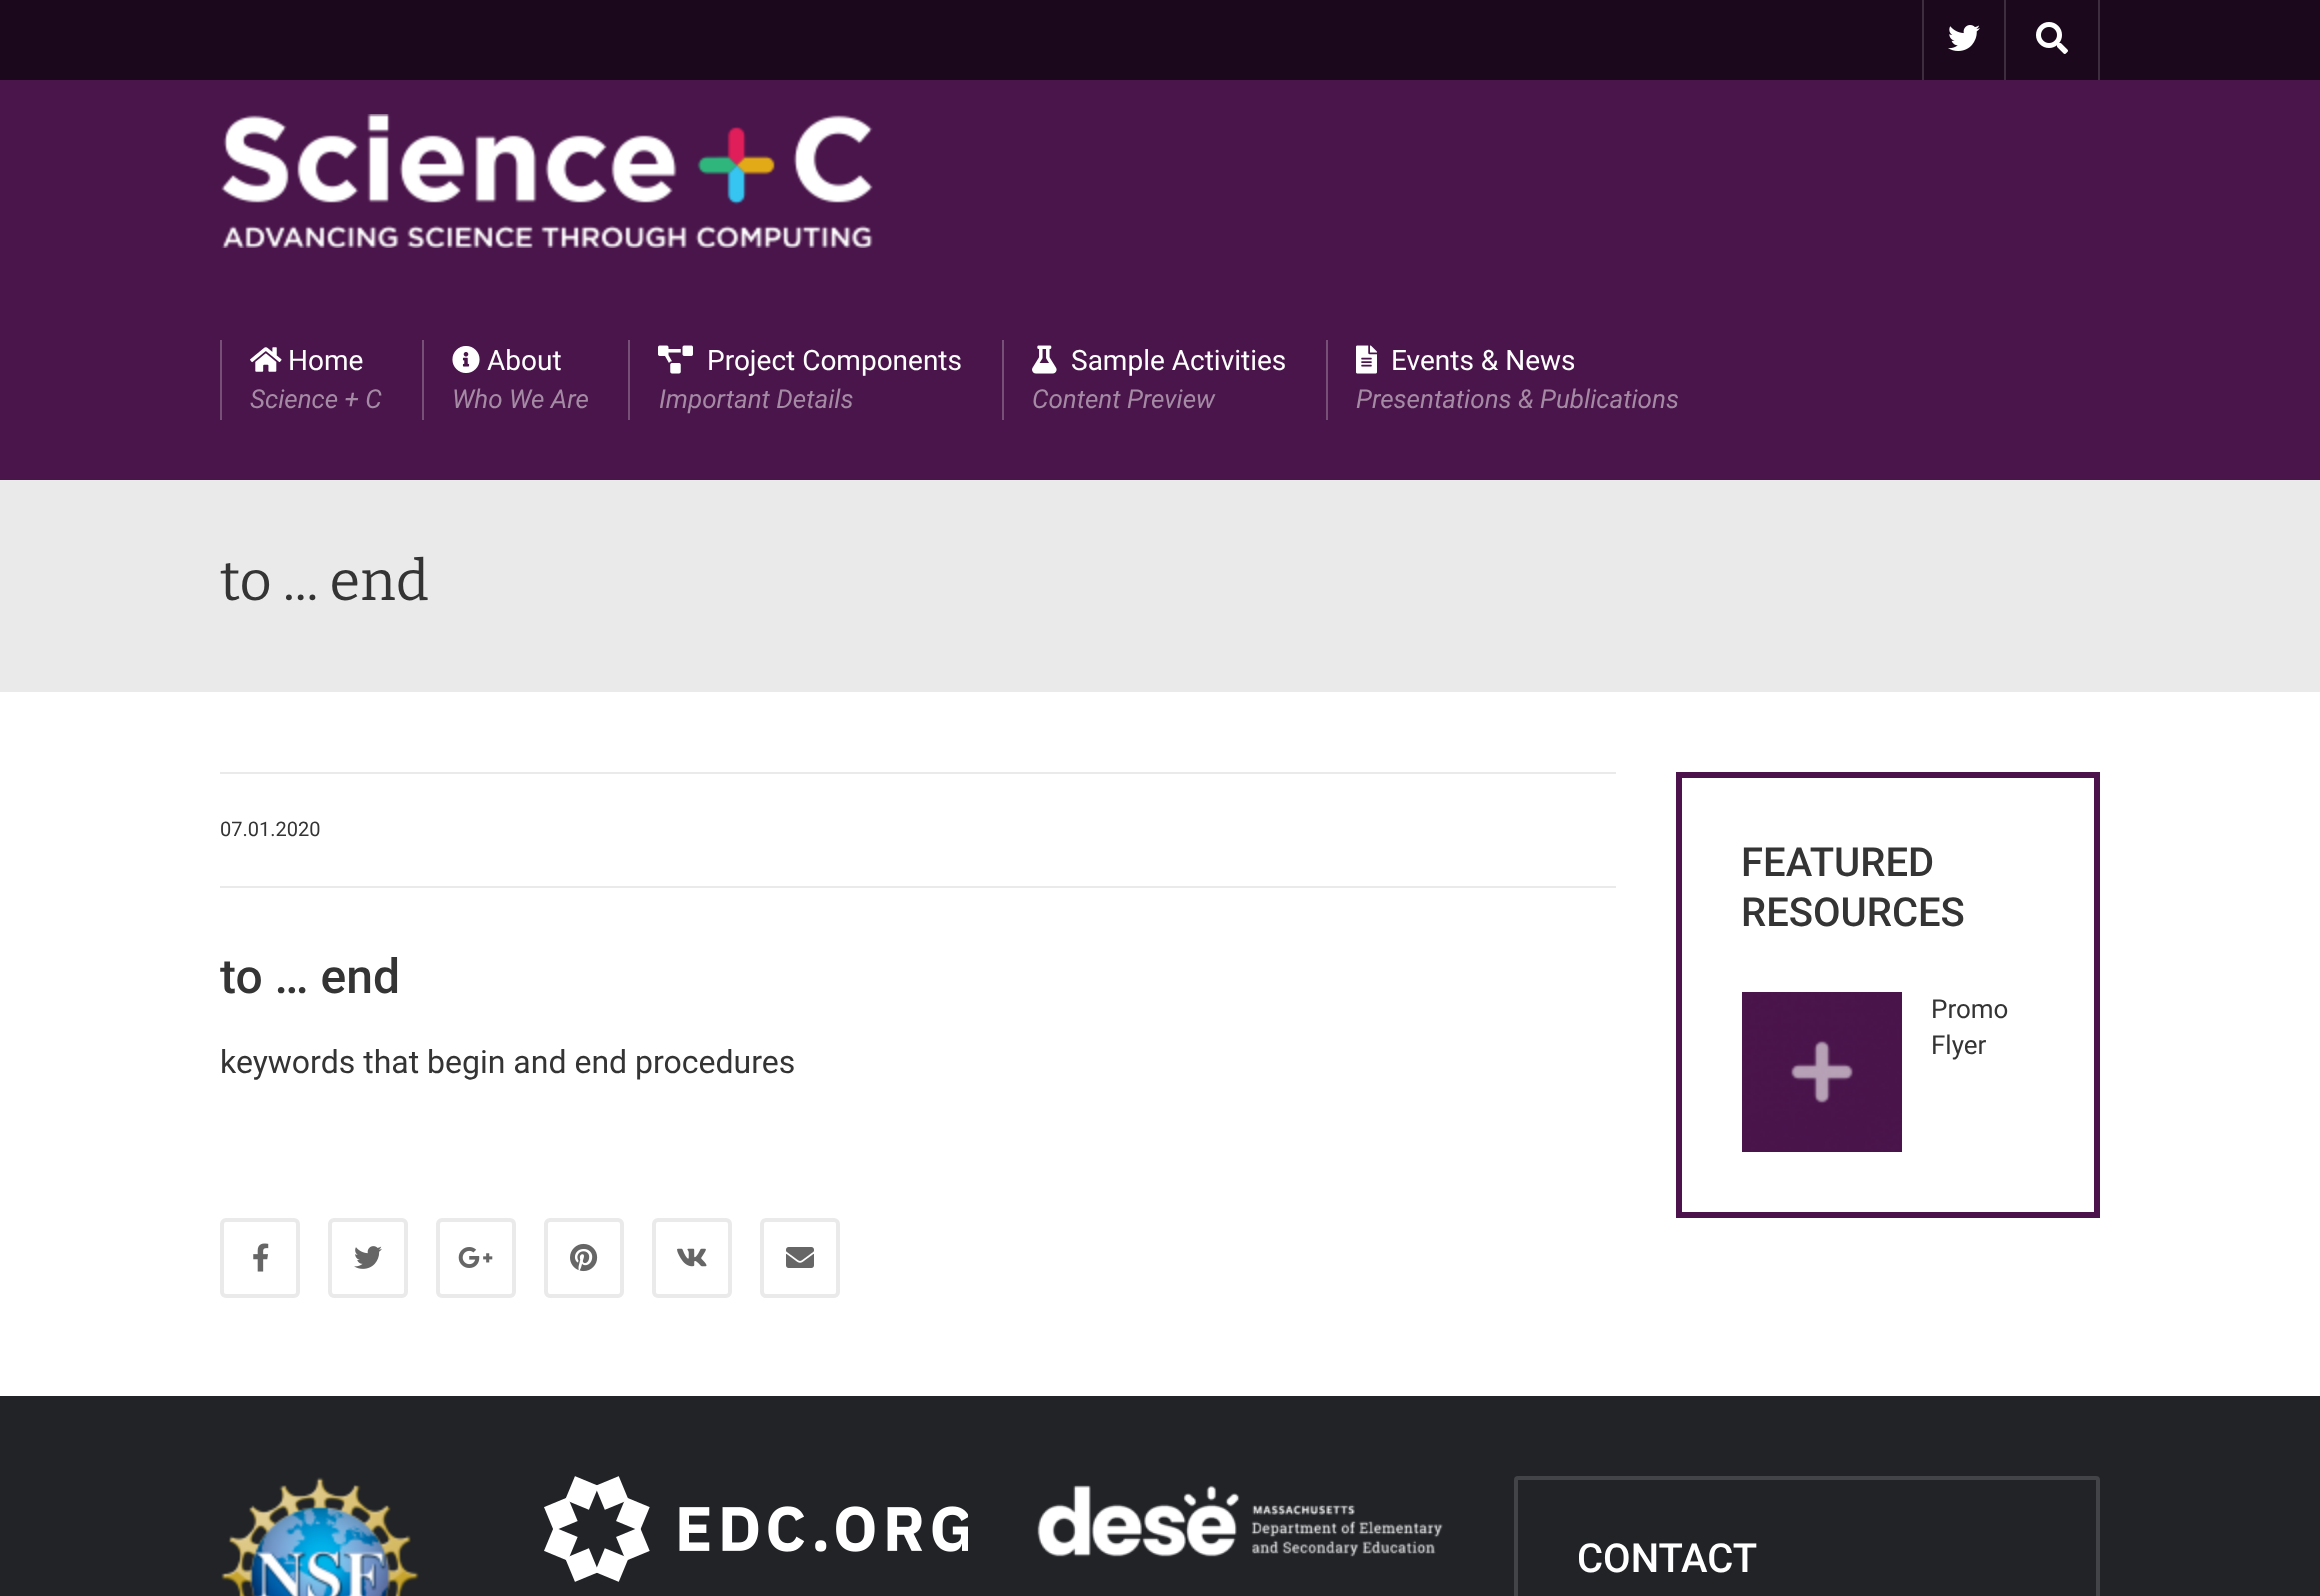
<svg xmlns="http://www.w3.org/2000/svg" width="2320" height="1596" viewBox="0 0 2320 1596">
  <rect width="100%" height="100%" fill="rgb(255,255,255)"/>
  <rect x="0" y="0" width="2320" height="80" fill="rgb(28,8,28)"/>
  <rect x="1922" y="0" width="2" height="80" fill="rgb(62,45,62)"/>
  <image x="1948" y="25" width="32" height="26" href="pic1.png"/>
  <rect x="2098" y="0" width="2" height="80" fill="rgb(62,45,62)"/>
  <rect x="2004" y="0" width="2" height="80" fill="rgb(62,45,62)"/>
  <image x="2036" y="22" width="32" height="32" href="pic2.png"/>
  <rect x="0" y="80" width="2320" height="400" fill="rgb(74,21,75)"/>
  <image x="221" y="114" width="652" height="134" href="pic3.png"/>
  <rect x="220" y="340" width="2" height="80" fill="rgb(119,80,120)"/>
  <image x="250" y="347" width="32" height="25" href="pic4.png"/>
  <text x="288" y="370" font-family="Roboto" font-size="28" fill="rgb(255,255,255)">Home</text>
  <text x="250" y="408" font-family="Roboto" font-size="26" font-style="italic" fill="rgb(165,138,165)">Science + C</text>
  <rect x="422" y="340" width="2" height="80" fill="rgb(119,80,120)"/>
  <image x="452" y="346" width="28" height="27" href="pic5.png"/>
  <text x="487" y="370" font-family="Roboto" font-size="28" fill="rgb(255,255,255)">About</text>
  <text x="452" y="408" font-family="Roboto" font-size="26" font-style="italic" fill="rgb(165,138,165)">Who We Are</text>
  <rect x="628" y="340" width="2" height="80" fill="rgb(119,80,120)"/>
  <image x="658" y="345" width="35" height="29" href="pic6.png"/>
  <text x="707" y="370" font-family="Roboto" font-size="28" fill="rgb(255,255,255)">Project Components</text>
  <text x="659" y="408" font-family="Roboto" font-size="26" font-style="italic" fill="rgb(165,138,165)">Important Details</text>
  <rect x="1002" y="340" width="2" height="80" fill="rgb(119,80,120)"/>
  <image x="1032" y="345" width="25" height="29" href="pic7.png"/>
  <text x="1071" y="370" font-family="Roboto" font-size="28" fill="rgb(255,255,255)">Sample Activities</text>
  <text x="1032" y="408" font-family="Roboto" font-size="26" font-style="italic" fill="rgb(165,138,165)">Content Preview</text>
  <rect x="1326" y="340" width="2" height="80" fill="rgb(119,80,120)"/>
  <image x="1356" y="345" width="21" height="29" href="pic8.png"/>
  <text x="1391" y="370" font-family="Roboto" font-size="28" fill="rgb(255,255,255)">Events &amp; News</text>
  <text x="1356" y="408" font-family="Roboto" font-size="26" font-style="italic" fill="rgb(165,138,165)">Presentations &amp; Publications</text>
  <rect x="0" y="480" width="2320" height="212" fill="rgb(234,234,234)"/>
  <text x="220" y="600" font-family="Bitter" font-size="56" font-weight="100" fill="rgb(52,52,52)">to ... end</text>
  <rect x="220" y="772" width="1396" height="2" fill="rgb(234,234,234)"/>
  <rect x="220" y="886" width="1396" height="2" fill="rgb(234,234,234)"/>
  <text x="220" y="836" font-family="Roboto" font-size="20" fill="rgb(52,52,52)">07.01.2020</text>
  <text x="220" y="993" font-family="Roboto" font-size="48" font-weight="500" fill="rgb(52,52,52)">to … end</text>
  <text x="220" y="1073" font-family="Roboto" font-size="32" fill="rgb(52,52,52)">keywords that begin and end procedures</text>
  <rect x="222" y="1220" width="76" height="76" rx="4" fill="none" stroke="rgb(234,234,234)" stroke-width="4"/>
  <image x="253" y="1243" width="16" height="29" href="pic9.png"/>
  <rect x="330" y="1220" width="76" height="76" rx="4" fill="none" stroke="rgb(234,234,234)" stroke-width="4"/>
  <image x="354" y="1246" width="28" height="23" href="pic10.png"/>
  <rect x="438" y="1220" width="76" height="76" rx="4" fill="none" stroke="rgb(234,234,234)" stroke-width="4"/>
  <image x="458" y="1247" width="35" height="21" href="pic11.png"/>
  <rect x="546" y="1220" width="76" height="76" rx="4" fill="none" stroke="rgb(234,234,234)" stroke-width="4"/>
  <image x="570" y="1243" width="28" height="29" href="pic12.png"/>
  <rect x="654" y="1220" width="76" height="76" rx="4" fill="none" stroke="rgb(234,234,234)" stroke-width="4"/>
  <image x="677" y="1248" width="30" height="19" href="pic13.png"/>
  <rect x="762" y="1220" width="76" height="76" rx="4" fill="none" stroke="rgb(234,234,234)" stroke-width="4"/>
  <image x="786" y="1247" width="28" height="21" href="pic14.png"/>
  <rect x="1679" y="775" width="418" height="440" fill="none" stroke="rgb(75,18,76)" stroke-width="6"/>
  <g font-family="Roboto" font-size="40" font-weight="500" fill="rgb(52,52,52)">
    <text>
      <tspan x="1741" y="876">FEATURED</tspan>
      <tspan x="1741" y="926">RESOURCES</tspan>
    </text>
  </g>
  <image x="1742" y="992" width="160" height="160" href="pic15.png"/>
  <g font-family="Roboto" font-size="26" fill="rgb(52,52,52)">
    <text>
      <tspan x="1931" y="1018">Promo</tspan>
      <tspan x="1931" y="1054">Flyer</tspan>
    </text>
  </g>
  <rect x="0" y="1396" width="2320" height="200" fill="rgb(33,35,39)"/>
  <image x="221" y="1477" width="198" height="119" href="pic16.png"/>
  <image x="544" y="1476" width="424" height="106" href="pic17.png"/>
  <image x="1037" y="1485" width="406" height="72" href="pic18.png"/>
  <rect x="1516" y="1478" width="582" height="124" rx="2" fill="none" stroke="rgb(66,68,71)" stroke-width="4"/>
  <text x="1577" y="1572" font-family="Roboto" font-size="40" font-weight="500" fill="rgb(255,255,255)">CONTACT</text>
</svg>
